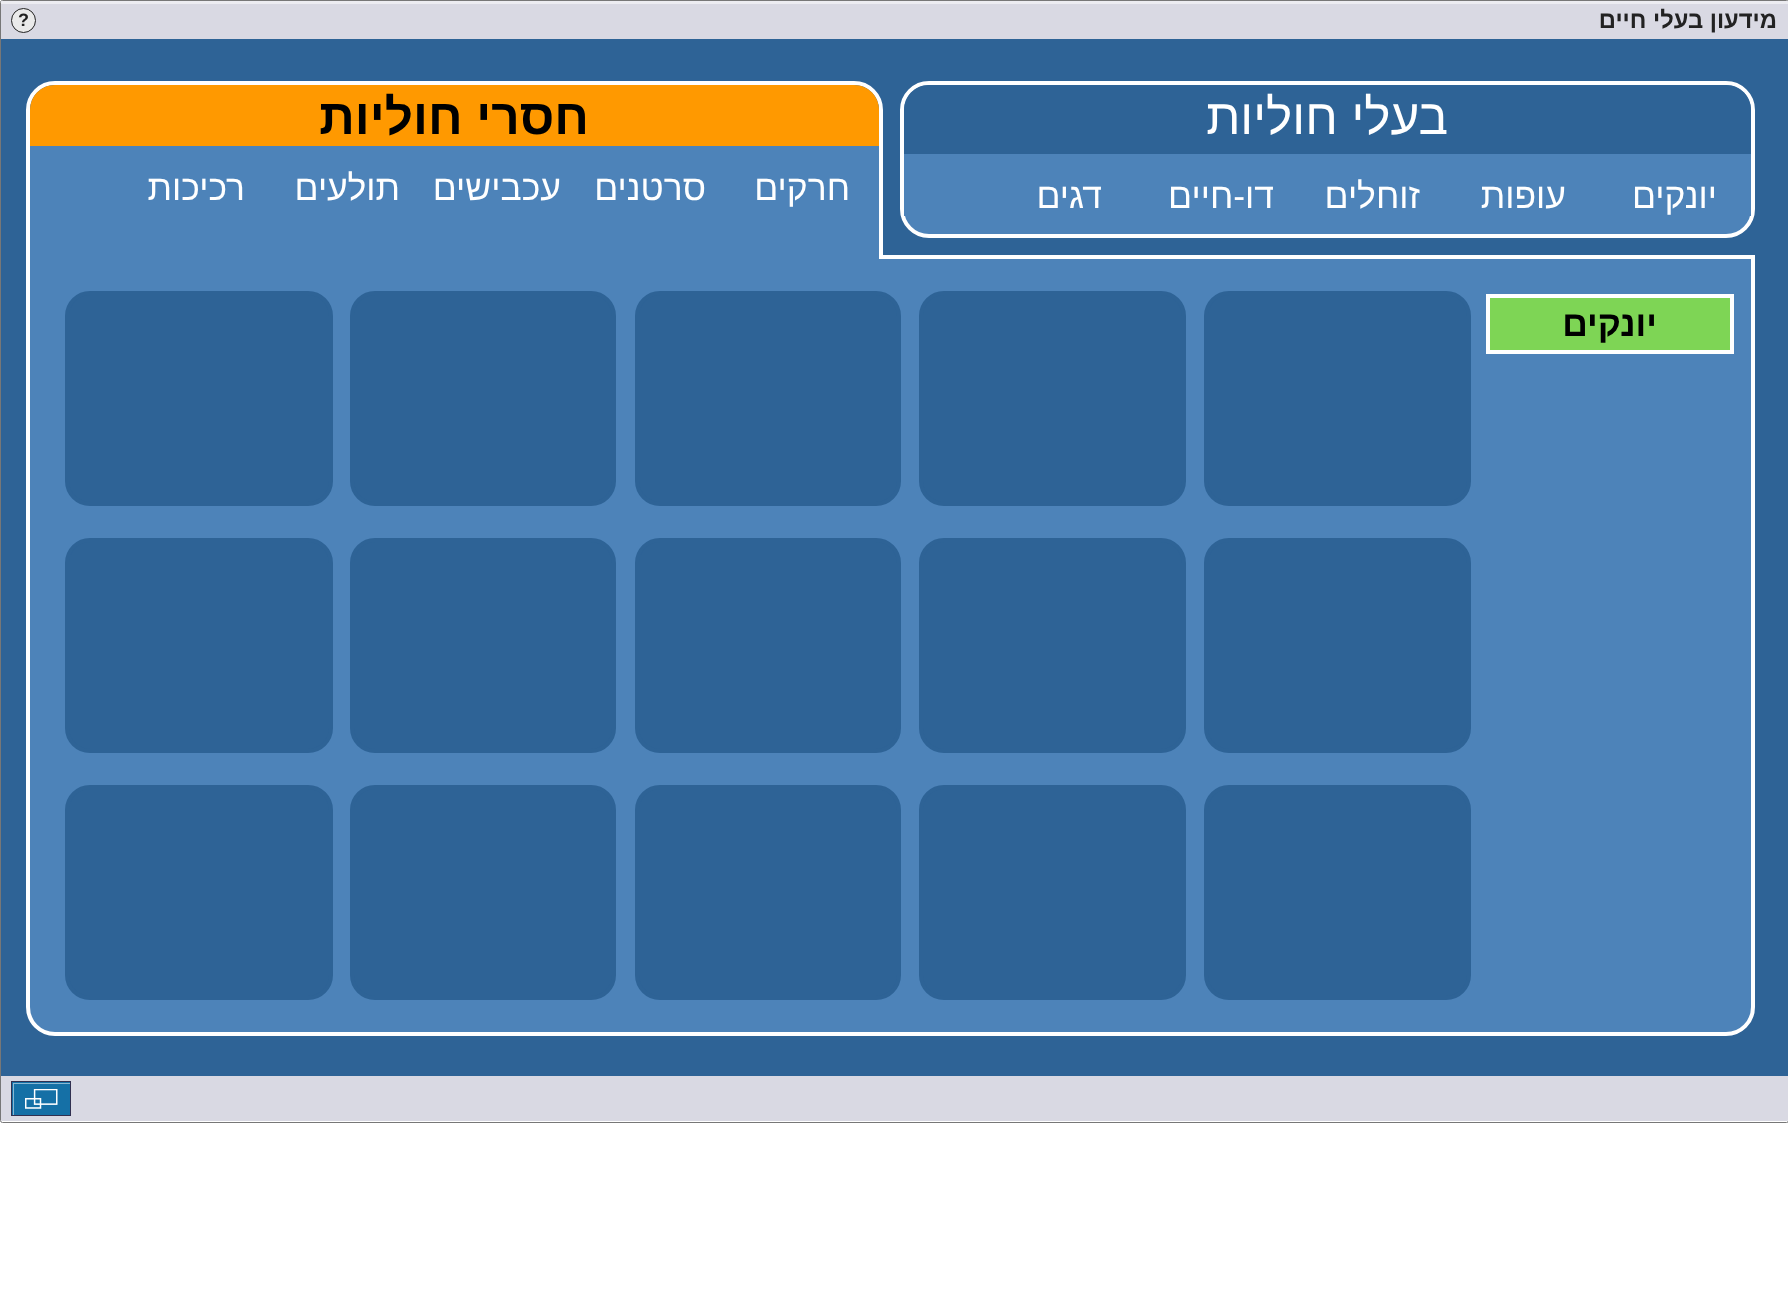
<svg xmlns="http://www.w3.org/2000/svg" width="1788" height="1307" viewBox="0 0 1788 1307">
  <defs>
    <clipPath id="clip1"><rect x="13" y="1083" width="57" height="32"/></clipPath>
  </defs>
  <rect width="100%" height="100%" fill="rgb(255,255,255)"/>
  <rect x="0.5" y="0.5" width="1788" height="1122" rx="2" fill="none" stroke="rgb(119,119,119)"/>
  <path d="M2 1H1787C1787.5 1 1788 1.5 1788 2V39H1V2C1 1.5 1.5 1 2 1Z" fill="rgb(217,217,227)"/>
  <path d="M2 1H1787C1787.5 1 1788 1.5 1788 2V4H1V2C1 1.5 1.5 1 2 1Z" fill="rgb(236,236,241)"/>
  <text x="1777" y="28" font-family="Liberation Sans" font-size="23.75" font-weight="bold" direction="rtl" fill="rgb(34,34,34)">מידעון בעלי חיים</text>
  <circle cx="23.5" cy="20.5" r="12" fill="rgb(234,234,234)" stroke="rgb(34,34,34)"/>
  <text x="18" y="26" font-family="Liberation Sans" font-size="18" font-weight="bold" fill="rgb(34,34,34)">?</text>
  <rect x="1" y="39" width="1787" height="1037" fill="rgb(46,99,150)"/>
  <rect x="902" y="83" width="851" height="153" rx="27" fill="rgb(77,131,185)" stroke="rgb(255,255,255)" stroke-width="4"/>
  <path d="M933 85H1722C1738 85 1751 98 1751 114V216H904V114C904 98 917 85 933 85Z" fill="rgb(77,131,185)"/>
  <path d="M929 85H1726C1740 85 1751 96 1751 110V154H904V110C904 96 915 85 929 85Z" fill="rgb(46,99,150)"/>
  <text x="1448" y="134" font-family="Liberation Sans" font-size="49.5" direction="rtl" fill="rgb(255,255,255)">בעלי חוליות</text>
  <g font-family="Liberation Sans" font-size="35.5" direction="rtl" fill="rgb(255,255,255)">
    <text x="1717" y="208">יונקים</text>
    <text x="1566" y="208">עופות</text>
    <text x="1420" y="208">זוחלים</text>
    <text x="1274" y="208">דו-חיים</text>
    <text x="1102" y="208">דגים</text>
  </g>
  <path d="M28 257H1753V1007C1753 1022 1741 1034 1726 1034H55C40 1034 28 1022 28 1007Z" fill="rgb(77,131,185)" stroke="rgb(255,255,255)" stroke-width="4"/>
  <path d="M55 83H854C869 83 881 95 881 110V254H28V110C28 95 40 83 55 83Z" fill="none" stroke="rgb(255,255,255)" stroke-width="4"/>
  <path d="M59 85H850C866 85 879 98 879 114V271H30V114C30 98 43 85 59 85Z" fill="rgb(77,131,185)"/>
  <path d="M55 85H854C868 85 879 96 879 110V146H30V110C30 96 41 85 55 85Z" fill="rgb(255,153,0)"/>
  <text x="589" y="134" font-family="Liberation Sans" font-size="49.5" font-weight="bold" direction="rtl" fill="rgb(0,0,0)">חסרי חוליות</text>
  <g font-family="Liberation Sans" font-size="35.5" direction="rtl" fill="rgb(255,255,255)">
    <text x="850" y="200">חרקים</text>
    <text x="706" y="200">סרטנים</text>
    <text x="561" y="200">עכבישים</text>
    <text x="400" y="200">תולעים</text>
    <text x="245" y="200">רכיכות</text>
  </g>
  <rect x="1488" y="296" width="244" height="56" fill="rgb(126,213,85)" stroke="rgb(255,255,255)" stroke-width="4"/>
  <text x="1657" y="336" font-family="Liberation Sans" font-size="35.5" font-weight="bold" direction="rtl" fill="rgb(0,0,0)">יונקים</text>
  <rect x="1206" y="293" width="263" height="211" rx="23" fill="rgb(46,99,150)" stroke="rgb(46,99,150)" stroke-width="4"/>
  <rect x="921" y="293" width="263" height="211" rx="23" fill="rgb(46,99,150)" stroke="rgb(46,99,150)" stroke-width="4"/>
  <rect x="637" y="293" width="262" height="211" rx="23" fill="rgb(46,99,150)" stroke="rgb(46,99,150)" stroke-width="4"/>
  <rect x="352" y="293" width="262" height="211" rx="23" fill="rgb(46,99,150)" stroke="rgb(46,99,150)" stroke-width="4"/>
  <rect x="67" y="293" width="264" height="211" rx="23" fill="rgb(46,99,150)" stroke="rgb(46,99,150)" stroke-width="4"/>
  <rect x="1206" y="540" width="263" height="211" rx="23" fill="rgb(46,99,150)" stroke="rgb(46,99,150)" stroke-width="4"/>
  <rect x="921" y="540" width="263" height="211" rx="23" fill="rgb(46,99,150)" stroke="rgb(46,99,150)" stroke-width="4"/>
  <rect x="637" y="540" width="262" height="211" rx="23" fill="rgb(46,99,150)" stroke="rgb(46,99,150)" stroke-width="4"/>
  <rect x="352" y="540" width="262" height="211" rx="23" fill="rgb(46,99,150)" stroke="rgb(46,99,150)" stroke-width="4"/>
  <rect x="67" y="540" width="264" height="211" rx="23" fill="rgb(46,99,150)" stroke="rgb(46,99,150)" stroke-width="4"/>
  <rect x="1206" y="787" width="263" height="211" rx="23" fill="rgb(46,99,150)" stroke="rgb(46,99,150)" stroke-width="4"/>
  <rect x="921" y="787" width="263" height="211" rx="23" fill="rgb(46,99,150)" stroke="rgb(46,99,150)" stroke-width="4"/>
  <rect x="637" y="787" width="262" height="211" rx="23" fill="rgb(46,99,150)" stroke="rgb(46,99,150)" stroke-width="4"/>
  <rect x="352" y="787" width="262" height="211" rx="23" fill="rgb(46,99,150)" stroke="rgb(46,99,150)" stroke-width="4"/>
  <rect x="67" y="787" width="264" height="211" rx="23" fill="rgb(46,99,150)" stroke="rgb(46,99,150)" stroke-width="4"/>
  <path d="M1 1076H1788V1120C1788 1120.5 1787.5 1121 1787 1121H2C1.5 1121 1 1120.5 1 1120Z" fill="rgb(217,217,227)"/>
  <rect x="12" y="1082" width="58" height="33" fill="rgb(21,112,166)"/>
  <g clip-path="url(#clip1)">
    <path d="M194 1121H2C1 1121 1 1121 1 1120V959H194ZM14 1084V1116H71V1084Z" fill="rgb(138,184,211)" fill-rule="evenodd"/>
  </g>
  <rect x="11.5" y="1081.5" width="59" height="34" fill="none" stroke="rgb(49,48,80)"/>
  <image x="25" y="1089" width="33" height="20" href="pic1.png"/>
</svg>
